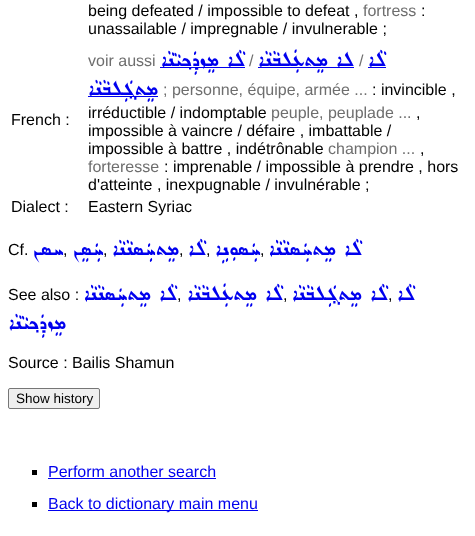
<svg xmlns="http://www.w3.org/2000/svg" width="475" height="536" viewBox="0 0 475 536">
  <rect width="100%" height="100%" fill="rgb(255,255,255)"/>
  <text x="88" y="16" font-family="Liberation Sans" font-size="16" fill="rgb(0,0,0)">being defeated / impossible to defeat ,</text>
  <text x="363" y="16" font-family="Liberation Sans" font-size="16" fill="rgb(110,110,110)">fortress</text>
  <g font-family="Liberation Sans" font-size="16" fill="rgb(0,0,0)">
    <text x="421" y="16">:</text>
    <text x="88" y="34">unassailable / impregnable / invulnerable ;</text>
    <text x="11" y="125">French :</text>
  </g>
  <text x="88" y="66" font-family="Liberation Sans" font-size="16" fill="rgb(110,110,110)">voir aussi</text>
  <rect x="160" y="67" width="85" height="1" fill="rgb(0,0,238)"/>
  <text x="245" y="66" font-family="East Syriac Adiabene" font-size="25.5" direction="rtl" fill="rgb(0,0,238)">ܠܵܐ ܡܸܙܕܲܟ݂ܝܵܢܵܐ</text>
  <text x="249" y="66" font-family="Liberation Sans" font-size="16" fill="rgb(110,110,110)">/</text>
  <rect x="258" y="67" width="96" height="1" fill="rgb(0,0,238)"/>
  <text x="354" y="66" font-family="East Syriac Adiabene" font-size="25.5" direction="rtl" fill="rgb(0,0,238)">ܠܐ ܡܸܬܥܲܠܒܵܢܵܐ</text>
  <text x="359" y="66" font-family="Liberation Sans" font-size="16" fill="rgb(110,110,110)">/</text>
  <rect x="368" y="67" width="18" height="1" fill="rgb(0,0,238)"/>
  <text x="386" y="66" font-family="East Syriac Adiabene" font-size="25.5" direction="rtl" fill="rgb(0,0,238)">ܠܵܐ</text>
  <rect x="88" y="96" width="70" height="1" fill="rgb(0,0,238)"/>
  <text x="158" y="95" font-family="East Syriac Adiabene" font-size="25.5" direction="rtl" fill="rgb(0,0,238)">ܡܸܬܓ݂ܲܠܒܵܢܵܐ</text>
  <text x="163" y="95" font-family="Liberation Sans" font-size="16" fill="rgb(110,110,110)">; personne, équipe, armée ...</text>
  <g font-family="Liberation Sans" font-size="16" fill="rgb(0,0,0)">
    <text x="372" y="95">: invincible ,</text>
    <text x="88" y="118">irréductible / indomptable</text>
  </g>
  <text x="271" y="118" font-family="Liberation Sans" font-size="16" fill="rgb(110,110,110)">peuple, peuplade ...</text>
  <g font-family="Liberation Sans" font-size="16" fill="rgb(0,0,0)">
    <text x="416" y="118">,</text>
    <text>
      <tspan x="88" y="136">impossible à vaincre / défaire , imbattable /</tspan>
      <tspan x="88" y="154">impossible à battre , indétrônable</tspan>
    </text>
  </g>
  <text x="328" y="154" font-family="Liberation Sans" font-size="16" fill="rgb(110,110,110)">champion ...</text>
  <text x="420" y="154" font-family="Liberation Sans" font-size="16" fill="rgb(0,0,0)">,</text>
  <text x="88" y="172" font-family="Liberation Sans" font-size="16" fill="rgb(110,110,110)">forteresse</text>
  <g font-family="Liberation Sans" font-size="16" fill="rgb(0,0,0)">
    <text x="164" y="172">: imprenable / impossible à prendre , hors</text>
    <text x="88" y="190">d'atteinte , inexpugnable / invulnérable ;</text>
    <text x="11" y="212">Dialect :</text>
    <text x="88" y="212">Eastern Syriac</text>
    <text x="8" y="255">Cf.</text>
  </g>
  <text x="63" y="255" font-family="East Syriac Adiabene" font-size="25.5" direction="rtl" fill="rgb(0,0,238)">ܚܣܢ</text>
  <text x="63" y="255" font-family="Liberation Sans" font-size="16" fill="rgb(0,0,0)">,</text>
  <text x="103" y="255" font-family="East Syriac Adiabene" font-size="25.5" direction="rtl" fill="rgb(0,0,238)">ܚܲܣܸܢ</text>
  <text x="103" y="255" font-family="Liberation Sans" font-size="16" fill="rgb(0,0,0)">,</text>
  <text x="179" y="255" font-family="East Syriac Adiabene" font-size="25.5" direction="rtl" fill="rgb(0,0,238)">ܡܸܬܚܲܣܢܵܢܵܐ</text>
  <text x="179" y="255" font-family="Liberation Sans" font-size="16" fill="rgb(0,0,0)">,</text>
  <text x="206" y="255" font-family="East Syriac Adiabene" font-size="25.5" direction="rtl" fill="rgb(0,0,238)">ܠܵܐ</text>
  <text x="206" y="255" font-family="Liberation Sans" font-size="16" fill="rgb(0,0,0)">,</text>
  <text x="260" y="255" font-family="East Syriac Adiabene" font-size="25.5" direction="rtl" fill="rgb(0,0,238)">ܚܲܣܘܼܢܹܐ</text>
  <text x="260" y="255" font-family="Liberation Sans" font-size="16" fill="rgb(0,0,0)">,</text>
  <text x="362" y="255" font-family="East Syriac Adiabene" font-size="25.5" direction="rtl" fill="rgb(0,0,238)">ܠܵܐ ܡܸܬܚܲܣܢܵܢܵܐ</text>
  <text x="8" y="300" font-family="Liberation Sans" font-size="16" fill="rgb(0,0,0)">See also :</text>
  <text x="177" y="300" font-family="East Syriac Adiabene" font-size="25.5" direction="rtl" fill="rgb(0,0,238)">ܠܵܐ ܡܸܬܚܲܣܢܵܢܵܐ</text>
  <text x="177" y="300" font-family="Liberation Sans" font-size="16" fill="rgb(0,0,0)">,</text>
  <text x="283" y="300" font-family="East Syriac Adiabene" font-size="25.5" direction="rtl" fill="rgb(0,0,238)">ܠܵܐ ܡܸܬܥܲܠܒܵܢܵܐ</text>
  <text x="283" y="300" font-family="Liberation Sans" font-size="16" fill="rgb(0,0,0)">,</text>
  <text x="388" y="300" font-family="East Syriac Adiabene" font-size="25.5" direction="rtl" fill="rgb(0,0,238)">ܠܵܐ ܡܸܬܓ݂ܲܠܒܵܢܵܐ</text>
  <text x="388" y="300" font-family="Liberation Sans" font-size="16" fill="rgb(0,0,0)">,</text>
  <g font-family="East Syriac Adiabene" font-size="25.5" direction="rtl" fill="rgb(0,0,238)">
    <text x="415" y="300">ܠܵܐ</text>
    <text x="66" y="329">ܡܸܙܕܲܟ݂ܝܵܢܵܐ</text>
  </g>
  <text x="8" y="368" font-family="Liberation Sans" font-size="16" fill="rgb(0,0,0)">Source : Bailis Shamun</text>
  <rect x="8.5" y="388.5" width="91" height="20" rx="1.5" fill="rgb(239,239,239)" stroke="rgb(118,118,118)"/>
  <text x="16" y="403" font-family="Liberation Sans" font-size="13.5" fill="rgb(0,0,0)">Show history</text>
  <rect x="32" y="470" width="5" height="5" fill="rgb(0,0,0)"/>
  <text x="48" y="477" font-family="Liberation Sans" font-size="16" fill="rgb(0,0,238)">Perform another search</text>
  <rect x="48" y="478" width="168" height="1" fill="rgb(0,0,238)"/>
  <rect x="32" y="502" width="5" height="5" fill="rgb(0,0,0)"/>
  <rect x="48" y="510" width="210" height="1" fill="rgb(0,0,238)"/>
  <text x="48" y="509" font-family="Liberation Sans" font-size="16" fill="rgb(0,0,238)">Back to dictionary main menu</text>
</svg>
